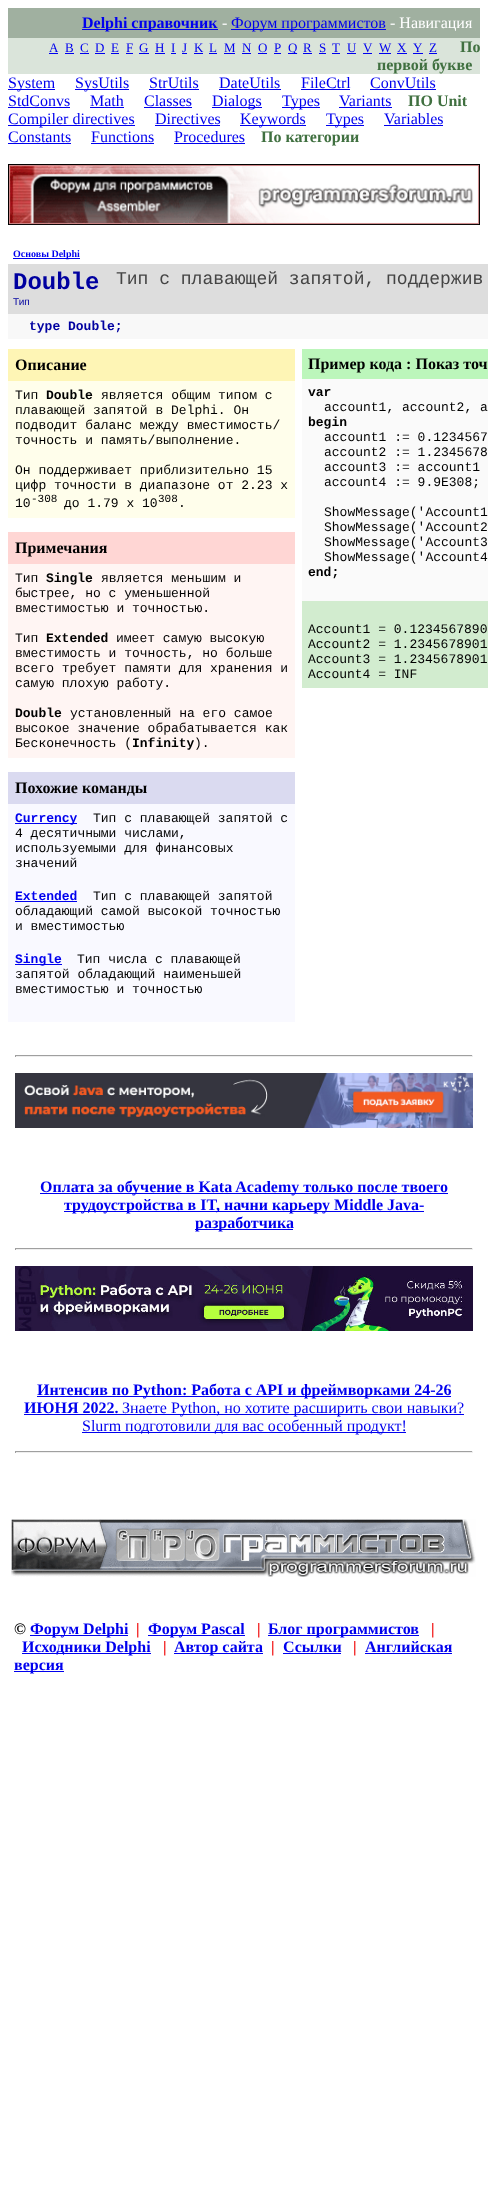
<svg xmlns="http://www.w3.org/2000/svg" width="488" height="2192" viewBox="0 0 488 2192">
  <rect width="100%" height="100%" fill="rgb(255,255,255)"/>
  <rect x="8" y="8" width="472" height="30" fill="rgb(160,176,160)"/>
  <rect x="82" y="29" width="136" height="1" fill="rgb(0,0,238)"/>
  <text x="82" y="28" font-family="Liberation Serif" font-size="16" font-weight="bold" fill="rgb(0,0,238)">Delphi справочник</text>
  <text x="222" y="28" font-family="Liberation Serif" font-size="16" fill="rgb(255,255,255)">-</text>
  <rect x="231" y="29" width="155" height="1" fill="rgb(0,0,238)"/>
  <text x="231" y="28" font-family="Liberation Serif" font-size="16" fill="rgb(0,0,238)">Форум программистов</text>
  <text x="390" y="28" font-family="Liberation Serif" font-size="16" fill="rgb(255,255,255)">- Навигация</text>
  <rect x="8" y="38" width="472" height="36" fill="rgb(218,228,218)"/>
  <text x="49" y="52" font-family="Liberation Serif" font-size="13" fill="rgb(0,0,238)">A</text>
  <rect x="49" y="53" width="9" height="1" fill="rgb(0,0,238)"/>
  <text x="65" y="52" font-family="Liberation Serif" font-size="13" fill="rgb(0,0,238)">B</text>
  <rect x="65" y="53" width="9" height="1" fill="rgb(0,0,238)"/>
  <text x="80" y="52" font-family="Liberation Serif" font-size="13" fill="rgb(0,0,238)">C</text>
  <rect x="80" y="53" width="9" height="1" fill="rgb(0,0,238)"/>
  <text x="95" y="52" font-family="Liberation Serif" font-size="13" fill="rgb(0,0,238)">D</text>
  <rect x="95" y="53" width="10" height="1" fill="rgb(0,0,238)"/>
  <text x="111" y="52" font-family="Liberation Serif" font-size="13" fill="rgb(0,0,238)">E</text>
  <rect x="111" y="53" width="8" height="1" fill="rgb(0,0,238)"/>
  <text x="126" y="52" font-family="Liberation Serif" font-size="13" fill="rgb(0,0,238)">F</text>
  <rect x="126" y="53" width="7" height="1" fill="rgb(0,0,238)"/>
  <text x="139" y="52" font-family="Liberation Serif" font-size="13" fill="rgb(0,0,238)">G</text>
  <rect x="139" y="53" width="10" height="1" fill="rgb(0,0,238)"/>
  <text x="155" y="52" font-family="Liberation Serif" font-size="13" fill="rgb(0,0,238)">H</text>
  <rect x="155" y="53" width="10" height="1" fill="rgb(0,0,238)"/>
  <text x="171" y="52" font-family="Liberation Serif" font-size="13" fill="rgb(0,0,238)">I</text>
  <rect x="171" y="53" width="5" height="1" fill="rgb(0,0,238)"/>
  <text x="182" y="52" font-family="Liberation Serif" font-size="13" fill="rgb(0,0,238)">J</text>
  <rect x="182" y="53" width="5" height="1" fill="rgb(0,0,238)"/>
  <text x="194" y="52" font-family="Liberation Serif" font-size="13" fill="rgb(0,0,238)">K</text>
  <rect x="194" y="53" width="9" height="1" fill="rgb(0,0,238)"/>
  <text x="209" y="52" font-family="Liberation Serif" font-size="13" fill="rgb(0,0,238)">L</text>
  <rect x="209" y="53" width="8" height="1" fill="rgb(0,0,238)"/>
  <text x="224" y="52" font-family="Liberation Serif" font-size="13" fill="rgb(0,0,238)">M</text>
  <rect x="224" y="53" width="11" height="1" fill="rgb(0,0,238)"/>
  <text x="242" y="52" font-family="Liberation Serif" font-size="13" fill="rgb(0,0,238)">N</text>
  <rect x="242" y="53" width="9" height="1" fill="rgb(0,0,238)"/>
  <text x="258" y="52" font-family="Liberation Serif" font-size="13" fill="rgb(0,0,238)">O</text>
  <rect x="258" y="53" width="9" height="1" fill="rgb(0,0,238)"/>
  <text x="274" y="52" font-family="Liberation Serif" font-size="13" fill="rgb(0,0,238)">P</text>
  <rect x="274" y="53" width="7" height="1" fill="rgb(0,0,238)"/>
  <rect x="288" y="53" width="9" height="1" fill="rgb(0,0,238)"/>
  <g font-family="Liberation Serif" font-size="13" fill="rgb(0,0,238)">
    <text x="288" y="52">Q</text>
    <text x="303" y="52">R</text>
  </g>
  <rect x="303" y="53" width="9" height="1" fill="rgb(0,0,238)"/>
  <text x="319" y="52" font-family="Liberation Serif" font-size="13" fill="rgb(0,0,238)">S</text>
  <rect x="319" y="53" width="7" height="1" fill="rgb(0,0,238)"/>
  <text x="332" y="52" font-family="Liberation Serif" font-size="13" fill="rgb(0,0,238)">T</text>
  <rect x="332" y="53" width="8" height="1" fill="rgb(0,0,238)"/>
  <text x="347" y="52" font-family="Liberation Serif" font-size="13" fill="rgb(0,0,238)">U</text>
  <rect x="347" y="53" width="9" height="1" fill="rgb(0,0,238)"/>
  <text x="363" y="52" font-family="Liberation Serif" font-size="13" fill="rgb(0,0,238)">V</text>
  <rect x="363" y="53" width="9" height="1" fill="rgb(0,0,238)"/>
  <text x="379" y="52" font-family="Liberation Serif" font-size="13" fill="rgb(0,0,238)">W</text>
  <rect x="379" y="53" width="12" height="1" fill="rgb(0,0,238)"/>
  <text x="397" y="52" font-family="Liberation Serif" font-size="13" fill="rgb(0,0,238)">X</text>
  <rect x="397" y="53" width="10" height="1" fill="rgb(0,0,238)"/>
  <text x="413" y="52" font-family="Liberation Serif" font-size="13" fill="rgb(0,0,238)">Y</text>
  <rect x="413" y="53" width="10" height="1" fill="rgb(0,0,238)"/>
  <text x="429" y="52" font-family="Liberation Serif" font-size="13" fill="rgb(0,0,238)">Z</text>
  <rect x="429" y="53" width="8" height="1" fill="rgb(0,0,238)"/>
  <g font-family="Liberation Serif" font-size="16" font-weight="bold" fill="rgb(64,112,64)">
    <text x="460" y="52">По</text>
    <text x="377" y="70">первой букве</text>
  </g>
  <rect x="8" y="89" width="47" height="1" fill="rgb(0,0,238)"/>
  <text x="8" y="88" font-family="Liberation Serif" font-size="16" fill="rgb(0,0,238)">System</text>
  <rect x="75" y="89" width="54" height="1" fill="rgb(0,0,238)"/>
  <g font-family="Liberation Serif" font-size="16" fill="rgb(0,0,238)">
    <text x="75" y="88">SysUtils</text>
    <text x="149" y="88">StrUtils</text>
  </g>
  <rect x="149" y="89" width="50" height="1" fill="rgb(0,0,238)"/>
  <text x="219" y="88" font-family="Liberation Serif" font-size="16" fill="rgb(0,0,238)">DateUtils</text>
  <rect x="219" y="89" width="62" height="1" fill="rgb(0,0,238)"/>
  <text x="301" y="88" font-family="Liberation Serif" font-size="16" fill="rgb(0,0,238)">FileCtrl</text>
  <rect x="301" y="89" width="49" height="1" fill="rgb(0,0,238)"/>
  <text x="370" y="88" font-family="Liberation Serif" font-size="16" fill="rgb(0,0,238)">ConvUtils</text>
  <rect x="370" y="89" width="66" height="1" fill="rgb(0,0,238)"/>
  <text x="8" y="106" font-family="Liberation Serif" font-size="16" fill="rgb(0,0,238)">StdConvs</text>
  <rect x="8" y="107" width="62" height="1" fill="rgb(0,0,238)"/>
  <text x="90" y="106" font-family="Liberation Serif" font-size="16" fill="rgb(0,0,238)">Math</text>
  <rect x="90" y="107" width="34" height="1" fill="rgb(0,0,238)"/>
  <text x="144" y="106" font-family="Liberation Serif" font-size="16" fill="rgb(0,0,238)">Classes</text>
  <rect x="144" y="107" width="48" height="1" fill="rgb(0,0,238)"/>
  <rect x="212" y="107" width="50" height="1" fill="rgb(0,0,238)"/>
  <text x="212" y="106" font-family="Liberation Serif" font-size="16" fill="rgb(0,0,238)">Dialogs</text>
  <rect x="282" y="107" width="38" height="1" fill="rgb(0,0,238)"/>
  <g font-family="Liberation Serif" font-size="16" fill="rgb(0,0,238)">
    <text x="282" y="106">Types</text>
    <text x="339" y="106">Variants</text>
  </g>
  <rect x="339" y="107" width="53" height="1" fill="rgb(0,0,238)"/>
  <text x="408" y="106" font-family="Liberation Serif" font-size="16" font-weight="bold" fill="rgb(64,112,64)">ПО Unit</text>
  <rect x="8" y="125" width="127" height="1" fill="rgb(0,0,238)"/>
  <g font-family="Liberation Serif" font-size="16" fill="rgb(0,0,238)">
    <text x="8" y="124">Compiler directives</text>
    <text x="155" y="124">Directives</text>
  </g>
  <rect x="155" y="125" width="65" height="1" fill="rgb(0,0,238)"/>
  <rect x="240" y="125" width="66" height="1" fill="rgb(0,0,238)"/>
  <text x="240" y="124" font-family="Liberation Serif" font-size="16" fill="rgb(0,0,238)">Keywords</text>
  <rect x="326" y="125" width="38" height="1" fill="rgb(0,0,238)"/>
  <g font-family="Liberation Serif" font-size="16" fill="rgb(0,0,238)">
    <text x="326" y="124">Types</text>
    <text x="384" y="124">Variables</text>
  </g>
  <rect x="384" y="125" width="59" height="1" fill="rgb(0,0,238)"/>
  <text x="8" y="142" font-family="Liberation Serif" font-size="16" fill="rgb(0,0,238)">Constants</text>
  <rect x="8" y="143" width="63" height="1" fill="rgb(0,0,238)"/>
  <text x="91" y="142" font-family="Liberation Serif" font-size="16" fill="rgb(0,0,238)">Functions</text>
  <rect x="91" y="143" width="63" height="1" fill="rgb(0,0,238)"/>
  <text x="174" y="142" font-family="Liberation Serif" font-size="16" fill="rgb(0,0,238)">Procedures</text>
  <rect x="174" y="143" width="71" height="1" fill="rgb(0,0,238)"/>
  <text x="261" y="142" font-family="Liberation Serif" font-size="16" font-weight="bold" fill="rgb(64,112,64)">По категории</text>
  <image x="8" y="164" width="472" height="61" href="pic1.png"/>
  <rect x="13" y="258" width="67" height="1" fill="rgb(0,0,238)"/>
  <text x="13" y="257" font-family="Liberation Serif" font-size="10" font-weight="bold" fill="rgb(0,0,238)">Основы Delphi</text>
  <rect x="8" y="264" width="480" height="50" fill="rgb(221,221,221)"/>
  <text x="13" y="289" font-family="Liberation Mono" font-size="24" font-weight="bold" fill="rgb(0,0,160)">Double</text>
  <text x="13" y="305" font-family="Liberation Sans" font-size="10" fill="rgb(0,0,160)">Тип</text>
  <text x="116" y="284" font-family="Liberation Mono" font-size="18" fill="rgb(68,68,68)">Тип с плавающей запятой, поддержив</text>
  <rect x="8" y="314" width="480" height="25" fill="rgb(248,248,248)"/>
  <text x="29" y="330" font-family="Liberation Mono" font-size="13" font-weight="bold" fill="rgb(0,0,160)">type Double;</text>
  <rect x="8" y="349" width="287" height="32" fill="rgb(254,245,181)"/>
  <text x="15" y="370" font-family="Liberation Serif" font-size="16" font-weight="bold" fill="rgb(0,0,0)">Описание</text>
  <rect x="8" y="381" width="287" height="137" fill="rgb(255,254,235)"/>
  <text x="15" y="399" font-family="Liberation Mono" font-size="13" fill="rgb(0,0,0)">Тип</text>
  <text x="46" y="399" font-family="Liberation Mono" font-size="13" font-weight="bold" fill="rgb(0,0,0)">Double</text>
  <g font-family="Liberation Mono" font-size="13" fill="rgb(0,0,0)">
    <text x="101" y="399">является общим типом с</text>
    <text>
      <tspan x="15" y="414">плавающей запятой в Delphi. Он</tspan>
      <tspan x="15" y="429">подводит баланс между вместимость/</tspan>
      <tspan x="15" y="444">точность и память/выполнение.</tspan>
    </text>
    <text>
      <tspan x="15" y="474">Он поддерживает приблизительно 15</tspan>
      <tspan x="15" y="489">цифр точности в диапазоне от 2.23 x</tspan>
      <tspan x="15" y="507">10</tspan>
    </text>
  </g>
  <text x="31" y="502" font-family="Liberation Mono" font-size="11" fill="rgb(0,0,0)">-308</text>
  <text x="64" y="507" font-family="Liberation Mono" font-size="13" fill="rgb(0,0,0)">до 1.79 x 10</text>
  <text x="158" y="502" font-family="Liberation Mono" font-size="11" fill="rgb(0,0,0)">308</text>
  <text x="178" y="507" font-family="Liberation Mono" font-size="13" fill="rgb(0,0,0)">.</text>
  <rect x="8" y="532" width="287" height="32" fill="rgb(255,214,212)"/>
  <text x="15" y="553" font-family="Liberation Serif" font-size="16" font-weight="bold" fill="rgb(0,0,0)">Примечания</text>
  <rect x="8" y="564" width="287" height="194" fill="rgb(255,245,243)"/>
  <text x="15" y="582" font-family="Liberation Mono" font-size="13" fill="rgb(0,0,0)">Тип</text>
  <text x="46" y="582" font-family="Liberation Mono" font-size="13" font-weight="bold" fill="rgb(0,0,0)">Single</text>
  <g font-family="Liberation Mono" font-size="13" fill="rgb(0,0,0)">
    <text x="101" y="582">является меньшим и</text>
    <text>
      <tspan x="15" y="597">быстрее, но с уменьшенной</tspan>
      <tspan x="15" y="612">вместимостью и точностью.</tspan>
    </text>
    <text x="15" y="642">Тип</text>
  </g>
  <text x="46" y="642" font-family="Liberation Mono" font-size="13" font-weight="bold" fill="rgb(0,0,0)">Extended</text>
  <g font-family="Liberation Mono" font-size="13" fill="rgb(0,0,0)">
    <text x="116" y="642">имеет самую высокую</text>
    <text>
      <tspan x="15" y="657">вместимость и точность, но больше</tspan>
      <tspan x="15" y="672">всего требует памяти для хранения и</tspan>
      <tspan x="15" y="687">самую плохую работу.</tspan>
    </text>
  </g>
  <text x="15" y="717" font-family="Liberation Mono" font-size="13" font-weight="bold" fill="rgb(0,0,0)">Double</text>
  <g font-family="Liberation Mono" font-size="13" fill="rgb(0,0,0)">
    <text x="70" y="717">установленный на его самое</text>
    <text>
      <tspan x="15" y="732">высокое значение обрабатывается как</tspan>
      <tspan x="15" y="747">Бесконечность (</tspan>
    </text>
  </g>
  <text x="132" y="747" font-family="Liberation Mono" font-size="13" font-weight="bold" fill="rgb(0,0,0)">Infinity</text>
  <text x="194" y="747" font-family="Liberation Mono" font-size="13" fill="rgb(0,0,0)">).</text>
  <rect x="8" y="772" width="287" height="32" fill="rgb(218,218,240)"/>
  <text x="15" y="793" font-family="Liberation Serif" font-size="16" font-weight="bold" fill="rgb(0,0,0)">Похожие команды</text>
  <rect x="8" y="804" width="287" height="218" fill="rgb(249,249,255)"/>
  <rect x="15" y="823" width="62" height="1" fill="rgb(0,0,238)"/>
  <text x="15" y="822" font-family="Liberation Mono" font-size="13" font-weight="bold" fill="rgb(0,0,238)">Currency</text>
  <g font-family="Liberation Mono" font-size="13" fill="rgb(0,0,0)">
    <text x="93" y="822">Тип с плавающей запятой с</text>
    <text>
      <tspan x="15" y="837">4 десятичными числами,</tspan>
      <tspan x="15" y="852">используемыми для финансовых</tspan>
      <tspan x="15" y="867">значений</tspan>
    </text>
  </g>
  <text x="15" y="900" font-family="Liberation Mono" font-size="13" font-weight="bold" fill="rgb(0,0,238)">Extended</text>
  <rect x="15" y="901" width="62" height="1" fill="rgb(0,0,238)"/>
  <g font-family="Liberation Mono" font-size="13" fill="rgb(0,0,0)">
    <text x="93" y="900">Тип с плавающей запятой</text>
    <text>
      <tspan x="15" y="915">обладающий самой высокой точностью</tspan>
      <tspan x="15" y="930">и вместимостью</tspan>
    </text>
  </g>
  <rect x="15" y="964" width="47" height="1" fill="rgb(0,0,238)"/>
  <text x="15" y="963" font-family="Liberation Mono" font-size="13" font-weight="bold" fill="rgb(0,0,238)">Single</text>
  <g font-family="Liberation Mono" font-size="13" fill="rgb(0,0,0)">
    <text x="77" y="963">Тип числа с плавающей</text>
    <text>
      <tspan x="15" y="978">запятой обладающий наименьшей</tspan>
      <tspan x="15" y="993">вместимостью и точностью</tspan>
    </text>
  </g>
  <rect x="302" y="349" width="186" height="30" fill="rgb(188,246,187)"/>
  <text x="308" y="369" font-family="Liberation Serif" font-size="16" font-weight="bold" fill="rgb(0,0,0)">Пример кода : Показ точ</text>
  <rect x="302" y="379" width="186" height="222" fill="rgb(250,250,250)"/>
  <text x="308" y="396" font-family="Liberation Mono" font-size="13" font-weight="bold" fill="rgb(0,0,0)">var</text>
  <text x="324" y="411" font-family="Liberation Mono" font-size="13" fill="rgb(0,0,0)">account1, account2, a</text>
  <text x="308" y="426" font-family="Liberation Mono" font-size="13" font-weight="bold" fill="rgb(0,0,0)">begin</text>
  <g font-family="Liberation Mono" font-size="13" fill="rgb(0,0,0)">
    <text>
      <tspan x="324" y="441">account1 := 0.1234567</tspan>
      <tspan x="324" y="456">account2 := 1.2345678</tspan>
      <tspan x="324" y="471">account3 := account1</tspan>
      <tspan x="324" y="486">account4 := 9.9E308;</tspan>
    </text>
    <text>
      <tspan x="324" y="516">ShowMessage('Account1</tspan>
      <tspan x="324" y="531">ShowMessage('Account2</tspan>
      <tspan x="324" y="546">ShowMessage('Account3</tspan>
      <tspan x="324" y="561">ShowMessage('Account4</tspan>
    </text>
  </g>
  <text x="308" y="576" font-family="Liberation Mono" font-size="13" font-weight="bold" fill="rgb(0,0,0)">end;</text>
  <rect x="302" y="601" width="186" height="87" fill="rgb(210,236,207)"/>
  <g font-family="Liberation Mono" font-size="13" fill="rgb(0,0,0)">
    <text>
      <tspan x="308" y="633">Account1 = 0.1234567890</tspan>
      <tspan x="308" y="648">Account2 = 1.2345678901</tspan>
      <tspan x="308" y="663">Account3 = 1.2345678901</tspan>
      <tspan x="308" y="678">Account4 = INF</tspan>
    </text>
  </g>
  <rect x="15" y="1055" width="458" height="1" fill="rgb(159,159,159)"/>
  <rect x="472" y="1055" width="1" height="2" fill="rgb(238,238,238)"/>
  <rect x="15" y="1056" width="458" height="1" fill="rgb(238,238,238)"/>
  <rect x="15" y="1055" width="1" height="2" fill="rgb(159,159,159)"/>
  <image x="15" y="1073" width="458" height="55" href="pic2.png"/>
  <rect x="40" y="1193" width="408" height="1" fill="rgb(0,0,238)"/>
  <text x="40" y="1192" font-family="Liberation Serif" font-size="16" font-weight="bold" fill="rgb(0,0,238)">Оплата за обучение в Kata Academy только после твоего</text>
  <rect x="64" y="1211" width="360" height="1" fill="rgb(0,0,238)"/>
  <text x="64" y="1210" font-family="Liberation Serif" font-size="16" font-weight="bold" fill="rgb(0,0,238)">трудоустройства в IT, начни карьеру Middle Java-</text>
  <rect x="195" y="1229" width="98" height="1" fill="rgb(0,0,238)"/>
  <text x="195" y="1228" font-family="Liberation Serif" font-size="16" font-weight="bold" fill="rgb(0,0,238)">разработчика</text>
  <rect x="15" y="1248" width="458" height="1" fill="rgb(159,159,159)"/>
  <rect x="472" y="1248" width="1" height="2" fill="rgb(238,238,238)"/>
  <rect x="15" y="1249" width="458" height="1" fill="rgb(238,238,238)"/>
  <rect x="15" y="1248" width="1" height="2" fill="rgb(159,159,159)"/>
  <image x="15" y="1266" width="458" height="65" href="pic3.png"/>
  <rect x="37" y="1396" width="414" height="1" fill="rgb(0,0,238)"/>
  <g font-family="Liberation Serif" font-size="16" font-weight="bold" fill="rgb(0,0,238)">
    <text x="37" y="1395">Интенсив по Python: Работа с API и фреймворками 24-26</text>
    <text x="24" y="1413">ИЮНЯ 2022.</text>
  </g>
  <rect x="24" y="1414" width="440" height="1" fill="rgb(0,0,238)"/>
  <text x="122" y="1413" font-family="Liberation Serif" font-size="16" fill="rgb(0,0,238)">Знаете Python, но хотите расширить свои навыки?</text>
  <rect x="82" y="1432" width="324" height="1" fill="rgb(0,0,238)"/>
  <text x="82" y="1431" font-family="Liberation Serif" font-size="16" fill="rgb(0,0,238)">Slurm подготовили для вас особенный продукт!</text>
  <rect x="15" y="1451" width="458" height="1" fill="rgb(159,159,159)"/>
  <rect x="472" y="1451" width="1" height="2" fill="rgb(238,238,238)"/>
  <rect x="15" y="1452" width="458" height="1" fill="rgb(238,238,238)"/>
  <rect x="15" y="1451" width="1" height="2" fill="rgb(159,159,159)"/>
  <image x="11" y="1519" width="465" height="58" href="pic4.png"/>
  <text x="14" y="1634" font-family="Liberation Serif" font-size="16" font-weight="bold" fill="rgb(0,0,0)">©</text>
  <rect x="30" y="1635" width="98" height="1" fill="rgb(0,0,238)"/>
  <text x="30" y="1634" font-family="Liberation Serif" font-size="16" font-weight="bold" fill="rgb(0,0,238)">Форум Delphi</text>
  <text x="136" y="1634" font-family="Liberation Serif" font-size="16" font-weight="bold" fill="rgb(240,0,0)">|</text>
  <rect x="148" y="1635" width="97" height="1" fill="rgb(0,0,238)"/>
  <text x="148" y="1634" font-family="Liberation Serif" font-size="16" font-weight="bold" fill="rgb(0,0,238)">Форум Pascal</text>
  <text x="257" y="1634" font-family="Liberation Serif" font-size="16" font-weight="bold" fill="rgb(240,0,0)">|</text>
  <rect x="268" y="1635" width="151" height="1" fill="rgb(0,0,238)"/>
  <text x="268" y="1634" font-family="Liberation Serif" font-size="16" font-weight="bold" fill="rgb(0,0,238)">Блог программистов</text>
  <text x="431" y="1634" font-family="Liberation Serif" font-size="16" font-weight="bold" fill="rgb(240,0,0)">|</text>
  <rect x="22" y="1653" width="129" height="1" fill="rgb(0,0,238)"/>
  <text x="22" y="1652" font-family="Liberation Serif" font-size="16" font-weight="bold" fill="rgb(0,0,238)">Исходники Delphi</text>
  <text x="163" y="1652" font-family="Liberation Serif" font-size="16" font-weight="bold" fill="rgb(240,0,0)">|</text>
  <rect x="174" y="1653" width="89" height="1" fill="rgb(0,0,238)"/>
  <text x="174" y="1652" font-family="Liberation Serif" font-size="16" font-weight="bold" fill="rgb(0,0,238)">Автор сайта</text>
  <text x="271" y="1652" font-family="Liberation Serif" font-size="16" font-weight="bold" fill="rgb(240,0,0)">|</text>
  <text x="283" y="1652" font-family="Liberation Serif" font-size="16" font-weight="bold" fill="rgb(0,0,238)">Ссылки</text>
  <rect x="283" y="1653" width="58" height="1" fill="rgb(0,0,238)"/>
  <text x="353" y="1652" font-family="Liberation Serif" font-size="16" font-weight="bold" fill="rgb(240,0,0)">|</text>
  <text x="365" y="1652" font-family="Liberation Serif" font-size="16" font-weight="bold" fill="rgb(0,0,238)">Английская</text>
  <rect x="365" y="1653" width="87" height="1" fill="rgb(0,0,238)"/>
  <rect x="14" y="1671" width="50" height="1" fill="rgb(0,0,238)"/>
  <text x="14" y="1670" font-family="Liberation Serif" font-size="16" font-weight="bold" fill="rgb(0,0,238)">версия</text>
</svg>
